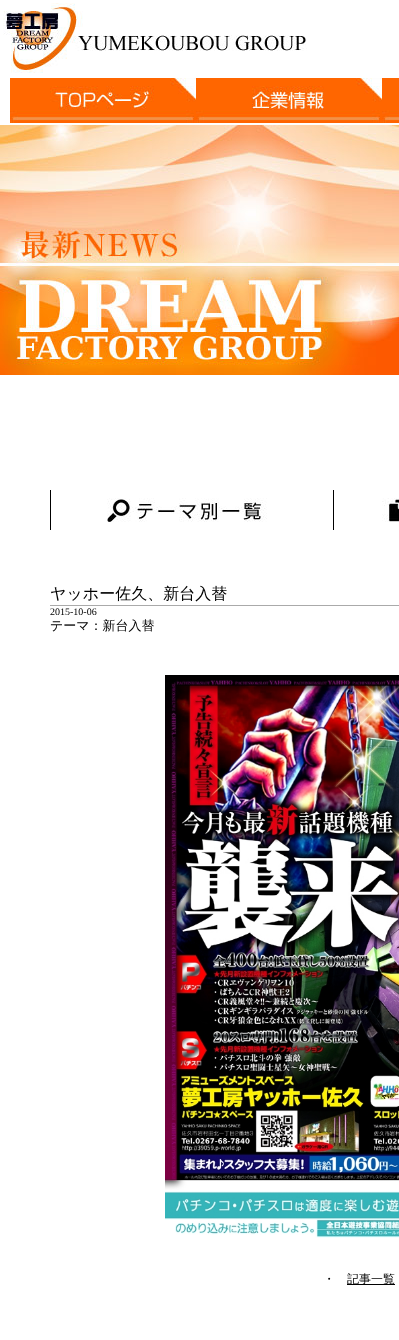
<svg xmlns="http://www.w3.org/2000/svg" width="399" height="1340" viewBox="0 0 399 1340">
  <rect width="100%" height="100%" fill="rgb(255,255,255)"/>
  <image x="3" y="3" width="304" height="70" href="pic1.png"/>
  <image x="10" y="78" width="186" height="45" href="pic2.png"/>
  <image x="196" y="78" width="186" height="45" href="pic3.png"/>
  <image x="382" y="78" width="17" height="45" href="pic4.png"/>
  <image x="0" y="125" width="399" height="250" href="pic5.png"/>
  <rect x="50" y="490" width="1" height="40" fill="rgb(0,0,0)"/>
  <image x="107" y="498" width="160" height="24" href="pic6.png"/>
  <rect x="333" y="490" width="1" height="40" fill="rgb(0,0,0)"/>
  <image x="382" y="498" width="17" height="24" href="pic7.png"/>
  <text x="50" y="599" font-family="WenQuanYi Zen Hei" font-size="16" font-weight="500" fill="rgb(0,0,0)">ヤッホー佐久、新台入替</text>
  <rect x="50" y="605" width="349" height="1" fill="rgb(170,170,170)"/>
  <text x="50" y="615" font-family="Liberation Serif" font-size="10" fill="rgb(0,0,0)">2015-10-06</text>
  <text x="50" y="630" font-family="WenQuanYi Zen Hei" font-size="13" font-weight="500" fill="rgb(0,0,0)">テーマ：新台入替</text>
  <image x="165" y="675" width="234" height="563" href="pic8.png"/>
  <text x="323" y="1283" font-family="WenQuanYi Zen Hei" font-size="12" font-weight="500" fill="rgb(0,0,0)">・</text>
  <rect x="347" y="1284" width="48" height="1" fill="rgb(0,0,0)"/>
  <text x="347" y="1283" font-family="WenQuanYi Zen Hei" font-size="12" font-weight="500" fill="rgb(0,0,0)">記事一覧</text>
</svg>
